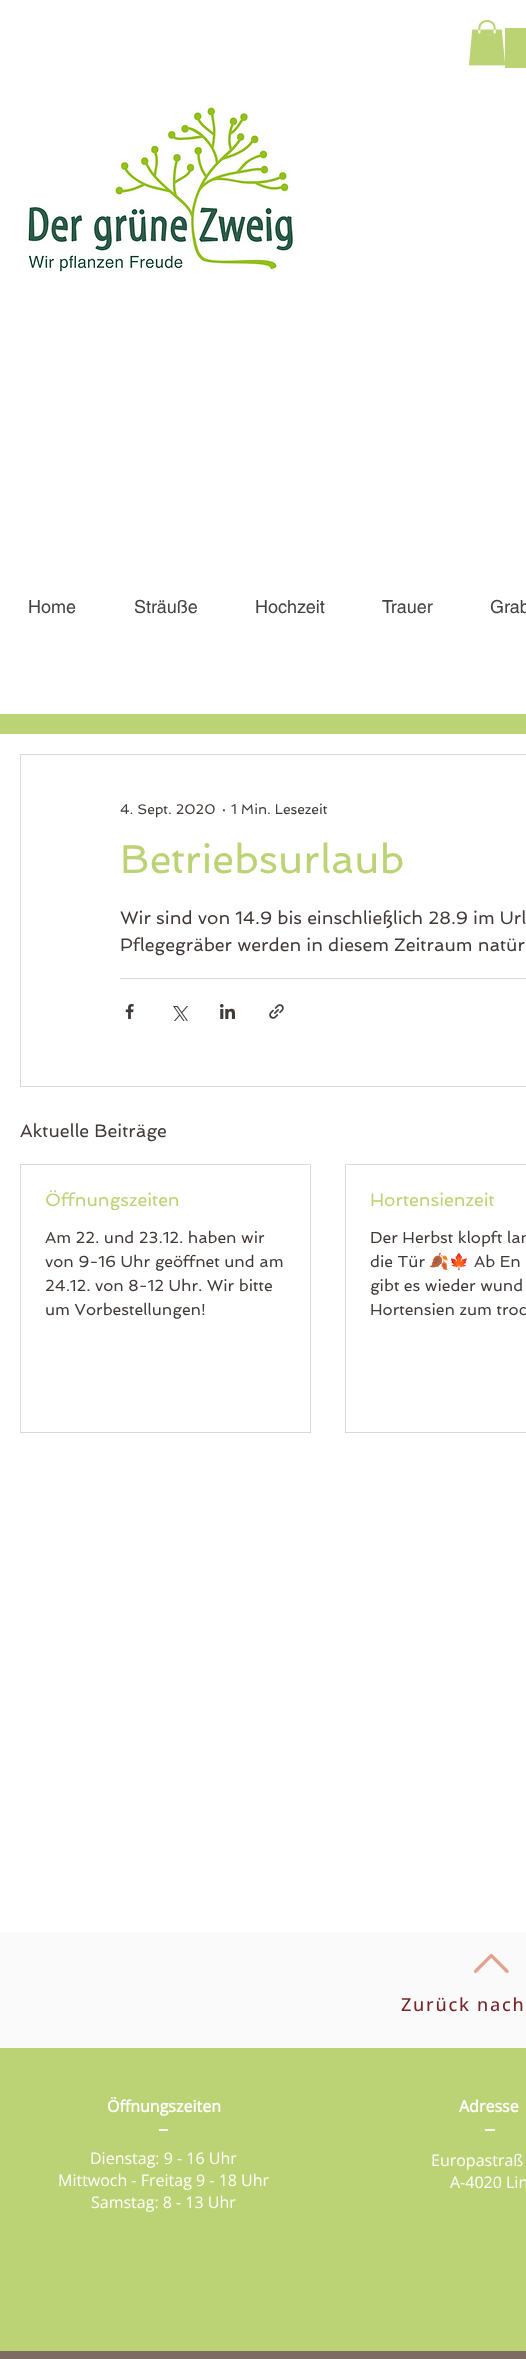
<svg xmlns="http://www.w3.org/2000/svg" width="526" height="2359" viewBox="0 0 526 2359">
  <defs>
    <clipPath id="clip1"><rect x="45" y="1189" width="241" height="21"/></clipPath>
  </defs>
  <rect width="100%" height="100%" fill="rgb(255,255,255)"/>
  <image x="469" y="20" width="36" height="46" href="pic1.png"/>
  <rect x="506" y="29" width="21" height="38" fill="rgb(187,211,115)" stroke="rgb(187,211,117)" stroke-width="2"/>
  <image x="28" y="105" width="266" height="167" href="pic2.png"/>
  <g font-family="helvetica" font-size="18" fill="rgb(68,68,68)">
    <text x="28" y="613">Home</text>
    <text x="134" y="613">Sträuße</text>
    <text x="255" y="613">Hochzeit</text>
    <text x="382" y="613">Trauer</text>
    <text x="490" y="613">Grab</text>
  </g>
  <rect x="0" y="714" width="526" height="20" fill="rgb(187,211,117)"/>
  <rect x="20.5" y="754.5" width="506" height="332" fill="none" stroke="rgb(217,216,215)"/>
  <g font-family="Spinnaker" font-size="14" fill="rgb(65,58,56)">
    <text x="120" y="814">4. Sept. 2020</text>
    <text x="222" y="814">·</text>
    <text x="231" y="814">1 Min. Lesezeit</text>
  </g>
  <text x="120" y="873" font-family="Spinnaker" font-size="40" fill="rgb(187,211,117)">Betriebsurlaub</text>
  <g font-family="Spinnaker" font-size="18" fill="rgb(65,58,56)">
    <text>
      <tspan x="120" y="924">Wir sind von 14.9 bis einschließlich 28.9 im Url</tspan>
      <tspan x="120" y="951">Pflegegräber werden in diesem Zeitraum natür</tspan>
    </text>
  </g>
  <rect x="120" y="978" width="406" height="1" fill="rgb(217,216,215)"/>
  <image x="125" y="1004" width="9" height="15" href="pic3.png"/>
  <image x="173" y="1006" width="15" height="15" href="pic4.png"/>
  <image x="220" y="1004" width="15" height="15" href="pic5.png"/>
  <image x="269" y="1004" width="15" height="15" href="pic6.png"/>
  <text x="20" y="1137" font-family="Spinnaker" font-size="18" fill="rgb(65,58,56)">Aktuelle Beiträge</text>
  <rect x="20.5" y="1164.5" width="290" height="268" fill="none" stroke="rgb(217,216,215)"/>
  <g clip-path="url(#clip1)">
    <text x="45" y="1206" font-family="Spinnaker" font-size="18" fill="rgb(187,211,117)">Öffnungszeiten</text>
  </g>
  <g font-family="Spinnaker" font-size="16" fill="rgb(65,58,56)">
    <text>
      <tspan x="45" y="1243">Am 22. und 23.12. haben wir</tspan>
      <tspan x="45" y="1267">von 9-16 Uhr geöffnet und am</tspan>
      <tspan x="45" y="1291">24.12. von 8-12 Uhr. Wir bitte</tspan>
      <tspan x="45" y="1315">um Vorbestellungen!</tspan>
    </text>
  </g>
  <rect x="345.5" y="1164.5" width="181" height="268" fill="none" stroke="rgb(217,216,215)"/>
  <text x="370" y="1206" font-family="Spinnaker" font-size="18" fill="rgb(187,211,117)">Hortensienzeit</text>
  <g font-family="Spinnaker" font-size="16" fill="rgb(65,58,56)">
    <text>
      <tspan x="370" y="1243">Der Herbst klopft lan</tspan>
      <tspan x="370" y="1267">die Tür</tspan>
    </text>
  </g>
  <text x="429" y="1267" font-family="Noto Color Emoji" font-size="16" fill="rgb(65,58,56)">🍂🍁</text>
  <g font-family="Spinnaker" font-size="16" fill="rgb(65,58,56)">
    <text x="474" y="1267">Ab En</text>
    <text>
      <tspan x="370" y="1291">gibt es wieder wund</tspan>
      <tspan x="370" y="1315">Hortensien zum troc</tspan>
    </text>
  </g>
  <rect x="0" y="1932" width="526" height="116" fill="rgb(250,250,250)"/>
  <image x="473" y="1953" width="36" height="21" href="pic7.png"/>
  <text x="401" y="2011" font-family="Open Sans" font-size="18" font-weight="500" letter-spacing="1.75" fill="rgb(116,38,44)">Zurück nach</text>
  <rect x="0" y="2048" width="526" height="303" fill="rgb(187,211,117)"/>
  <text x="107" y="2112" font-family="Open Sans" font-size="16" font-weight="bold" fill="rgb(255,255,255)">Öffnungszeiten</text>
  <rect x="159" y="2129" width="9" height="2" fill="rgb(255,255,255)"/>
  <g font-family="Open Sans" font-size="16" fill="rgb(255,255,255)">
    <text x="90" y="2164">Dienstag: 9 - 16 Uhr</text>
    <text x="58" y="2186">Mittwoch - Freitag 9 - 18 Uhr</text>
    <text x="91" y="2208">Samstag: 8 - 13 Uhr</text>
  </g>
  <text x="459" y="2112" font-family="Open Sans" font-size="16" font-weight="bold" fill="rgb(255,255,255)">Adresse</text>
  <rect x="485" y="2129" width="10" height="2" fill="rgb(255,255,255)"/>
  <g font-family="Open Sans" font-size="16" fill="rgb(255,255,255)">
    <text x="431" y="2166">Europastraß</text>
    <text x="450" y="2188">A-4020 Lin</text>
  </g>
  <rect x="0" y="2351" width="526" height="8" fill="rgb(126,107,99)"/>
</svg>
